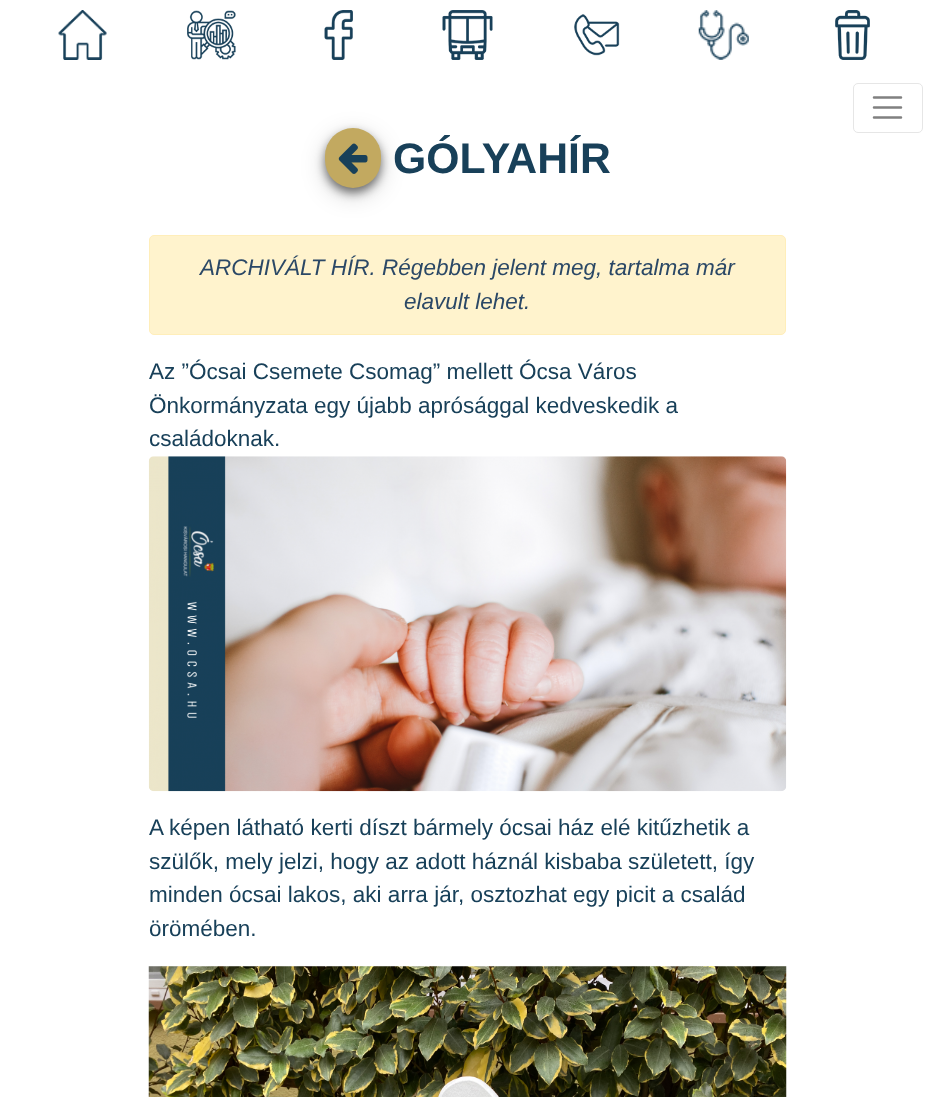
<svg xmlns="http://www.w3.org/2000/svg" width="935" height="1097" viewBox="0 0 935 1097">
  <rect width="100%" height="100%" fill="rgb(255,255,255)"/>
  <image x="58" y="10" width="49" height="50" href="pic1.png"/>
  <image x="187" y="10" width="49" height="50" href="pic2.png"/>
  <image x="324" y="10" width="29" height="50" href="pic3.png"/>
  <image x="442" y="10" width="51" height="50" href="pic4.png"/>
  <image x="574" y="14" width="46" height="42" href="pic5.png"/>
  <image x="698" y="10" width="51" height="50" href="pic6.png"/>
  <image x="835" y="10" width="35" height="50" href="pic7.png"/>
  <rect x="853.5" y="83.5" width="69" height="49" rx="4.5" fill="none" stroke="rgb(230,230,230)"/>
  <path d="M874 97.5H901M874 107.5H901M874 117.5H901" fill="none" stroke="rgb(128,128,128)" stroke-width="2.5" stroke-linecap="round"/>
  <rect x="325" y="135" width="56" height="60" rx="28" fill="rgba(0,0,0,0.19)" filter="blur(12.5px)"/>
  <rect x="325" y="133" width="56" height="60" rx="28" fill="rgba(0,0,0,0.5)" filter="blur(5px)"/>
  <rect x="325" y="128" width="56" height="60" rx="28" fill="rgb(194,169,96)"/>
  <text x="393" y="173" font-family="Liberation Sans" font-size="42.75" font-weight="bold" fill="rgb(24,64,89)">GÓLYAHÍR</text>
  <image x="338" y="143" width="30" height="31" href="pic8.png"/>
  <rect x="149.5" y="235.5" width="636" height="99" rx="4.5" fill="rgb(255,243,205)" stroke="rgb(255,238,186)"/>
  <g font-family="Liberation Sans" font-size="22.5" font-style="italic" fill="rgb(43,72,102)">
    <text x="200" y="275">ARCHIVÁLT HÍR. Régebben jelent meg, tartalma már</text>
    <text x="404" y="309">elavult lehet.</text>
  </g>
  <g font-family="Liberation Sans" font-size="22.5" fill="rgb(24,64,89)">
    <text>
      <tspan x="149" y="379">Az ”Ócsai Csemete Csomag” mellett Ócsa Város</tspan>
      <tspan x="149" y="413">Önkormányzata egy újabb aprósággal kedveskedik a</tspan>
      <tspan x="149" y="446">családoknak.</tspan>
    </text>
  </g>
  <image x="148" y="456" width="639" height="336" href="pic9.png"/>
  <g font-family="Liberation Sans" font-size="22.5" fill="rgb(24,64,89)">
    <text>
      <tspan x="149" y="835">A képen látható kerti díszt bármely ócsai ház elé kitűzhetik a</tspan>
      <tspan x="149" y="869">szülők, mely jelzi, hogy az adott háznál kisbaba született, így</tspan>
      <tspan x="149" y="902">minden ócsai lakos, aki arra jár, osztozhat egy picit a család</tspan>
      <tspan x="149" y="936">örömében.</tspan>
    </text>
  </g>
  <image x="148" y="966" width="639" height="131" href="pic10.png"/>
</svg>
